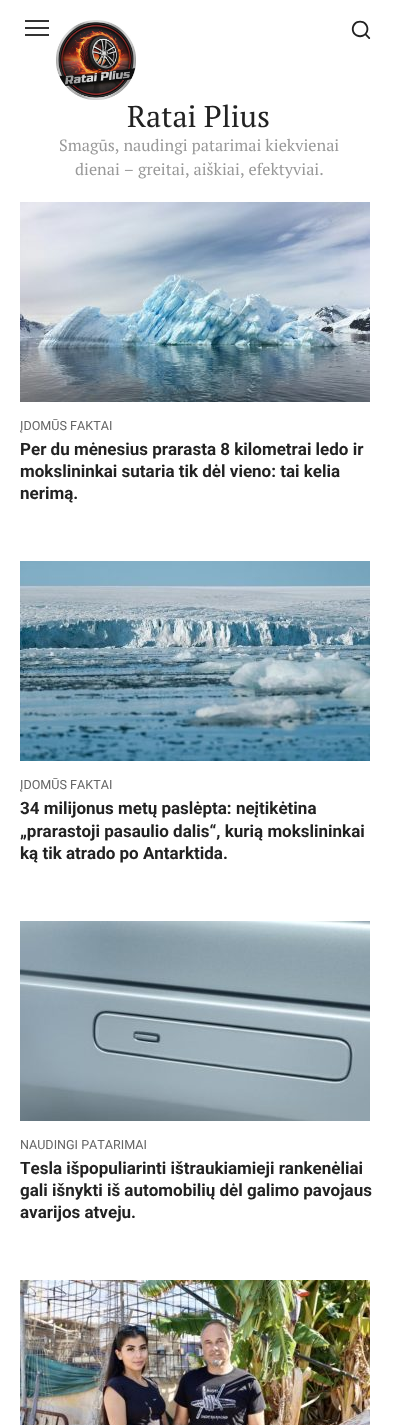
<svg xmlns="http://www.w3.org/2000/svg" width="397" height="1425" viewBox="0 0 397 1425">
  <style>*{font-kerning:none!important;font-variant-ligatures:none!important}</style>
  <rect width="100%" height="100%" fill="rgb(255,255,255)"/>
  <rect x="25" y="20" width="24" height="2" fill="rgb(51,51,51)"/>
  <rect x="25" y="27" width="24" height="2" fill="rgb(51,51,51)"/>
  <rect x="25" y="34" width="24" height="2" fill="rgb(51,51,51)"/>
  <text x="350" y="39" font-family="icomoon" font-size="22" fill="rgb(34,34,34)">🔍</text>
  <image x="56" y="20" width="80" height="80" href="pic1.png"/>
  <text x="127" y="127" font-family="PT Serif" font-size="30" fill="rgb(34,34,34)">Ratai Plius</text>
  <g font-family="PT Serif" font-size="16.25" fill="rgb(153,153,153)">
    <text x="59" y="151">Smagūs, naudingi patarimai kiekvienai</text>
    <text x="75" y="175">dienai – greitai, aiškiai, efektyviai.</text>
  </g>
  <image x="20" y="202" width="350" height="200" href="pic2.png"/>
  <text x="20" y="430" font-family="Roboto" font-size="12.6" fill="rgb(100,100,100)">ĮDOMŪS FAKTAI</text>
  <g font-family="Roboto" font-size="17" font-weight="bold" fill="rgb(34,34,34)">
    <text>
      <tspan x="20" y="455">Per du mėnesius prarasta 8 kilometrai ledo ir</tspan>
      <tspan x="20" y="477">mokslininkai sutaria tik dėl vieno: tai kelia</tspan>
      <tspan x="20" y="499">nerimą.</tspan>
    </text>
  </g>
  <image x="20" y="561" width="350" height="200" href="pic3.png"/>
  <text x="20" y="789" font-family="Roboto" font-size="12.6" fill="rgb(100,100,100)">ĮDOMŪS FAKTAI</text>
  <g font-family="Roboto" font-size="17" font-weight="bold" fill="rgb(34,34,34)">
    <text>
      <tspan x="20" y="814">34 milijonus metų paslėpta: neįtikėtina</tspan>
      <tspan x="20" y="837">„prarastoji pasaulio dalis“, kurią mokslininkai</tspan>
      <tspan x="20" y="859">ką tik atrado po Antarktida.</tspan>
    </text>
  </g>
  <image x="20" y="921" width="350" height="200" href="pic4.png"/>
  <text x="20" y="1149" font-family="Roboto" font-size="12.6" fill="rgb(100,100,100)">NAUDINGI PATARIMAI</text>
  <g font-family="Roboto" font-size="17" font-weight="bold" fill="rgb(34,34,34)">
    <text>
      <tspan x="20" y="1174">Tesla išpopuliarinti ištraukiamieji rankenėliai</tspan>
      <tspan x="20" y="1196">gali išnykti iš automobilių dėl galimo pavojaus</tspan>
      <tspan x="20" y="1218">avarijos atveju.</tspan>
    </text>
  </g>
  <image x="20" y="1280" width="350" height="145" href="pic5.png"/>
</svg>
